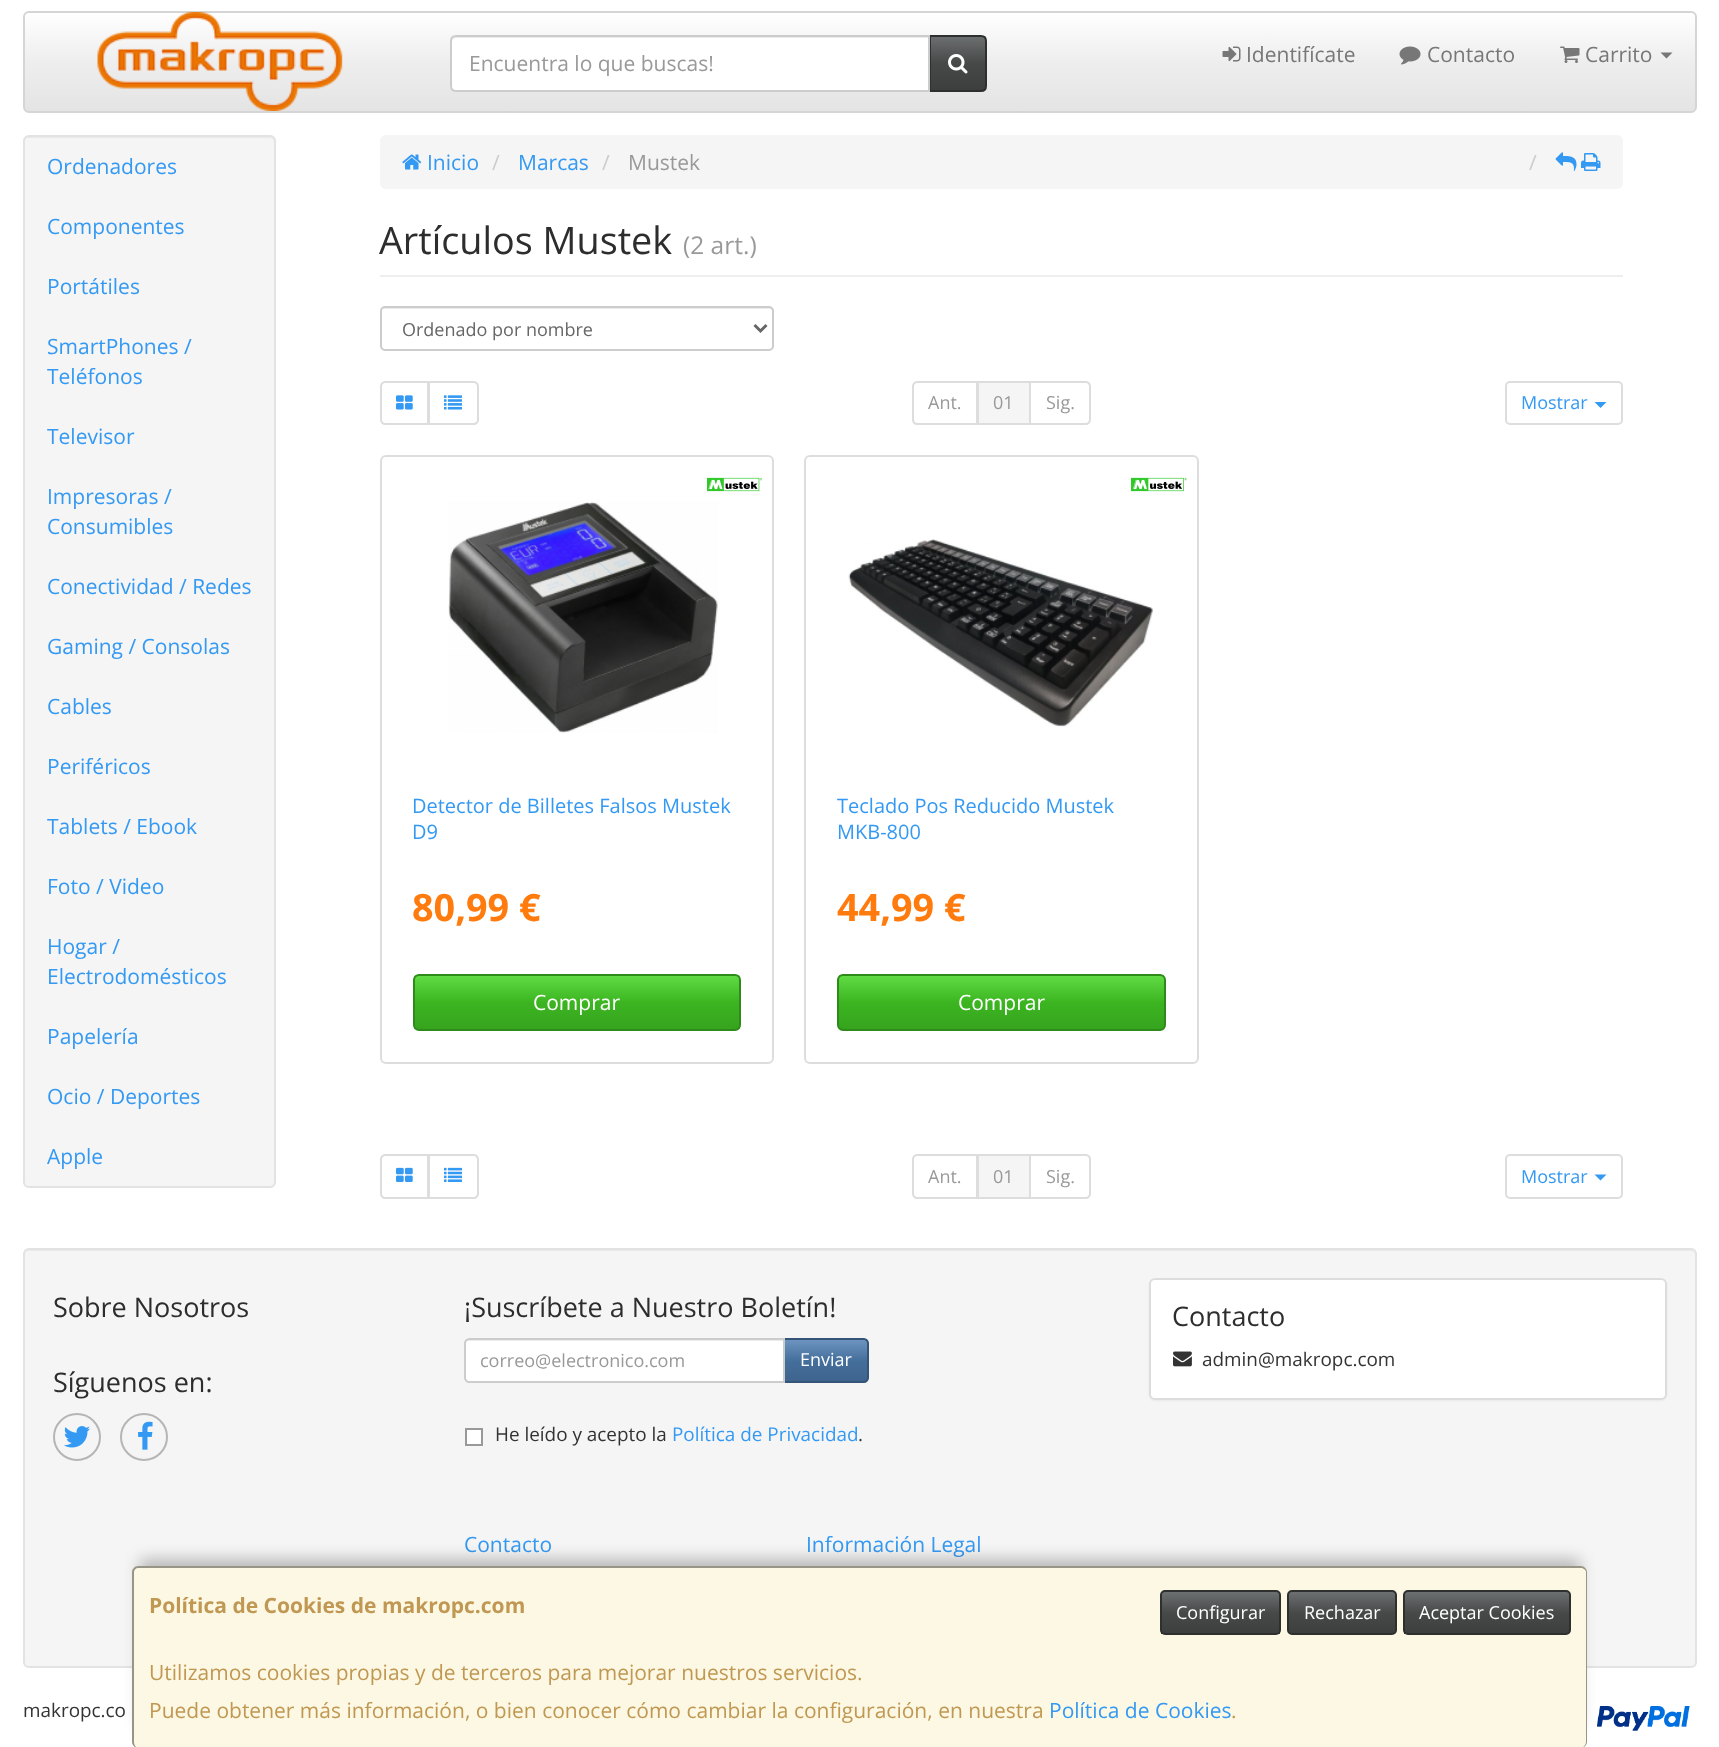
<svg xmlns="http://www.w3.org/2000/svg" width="1719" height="1747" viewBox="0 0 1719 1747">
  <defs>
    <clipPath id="clip1"><rect x="23" y="11" width="1674" height="102" rx="6"/></clipPath>
    <linearGradient id="g1" gradientUnits="userSpaceOnUse" x1="860" y1="12" x2="860" y2="111"><stop offset="0" stop-color="rgb(255,255,255)"/><stop offset="0.5" stop-color="rgb(238,238,238)"/><stop offset="1" stop-color="rgb(228,228,228)"/></linearGradient>
    <clipPath id="clip2"><path d="M929 35H981C984.5 35 987 37.5 987 41V86C987 89.5 984.5 92 981 92H929Z"/></clipPath>
    <linearGradient id="g2" gradientUnits="userSpaceOnUse" x1="958" y1="36" x2="958" y2="90"><stop offset="0" stop-color="rgb(109,112,112)"/><stop offset="0.5" stop-color="rgb(71,73,73)"/><stop offset="1" stop-color="rgb(61,63,63)"/></linearGradient>
    <clipPath id="clip3"><rect x="413" y="974" width="328" height="57" rx="6"/></clipPath>
    <linearGradient id="g3" gradientUnits="userSpaceOnUse" x1="577" y1="975" x2="577" y2="1029"><stop offset="0" stop-color="rgb(97,221,69)"/><stop offset="0.5" stop-color="rgb(60,181,33)"/><stop offset="1" stop-color="rgb(54,164,30)"/></linearGradient>
    <linearGradient id="g4" gradientUnits="userSpaceOnUse" x1="1001" y1="975" x2="1001" y2="1029"><stop offset="0" stop-color="rgb(97,221,69)"/><stop offset="0.5" stop-color="rgb(60,181,33)"/><stop offset="1" stop-color="rgb(54,164,30)"/></linearGradient>
    <linearGradient id="g5" gradientUnits="userSpaceOnUse" x1="826" y1="1340" x2="826" y2="1382"><stop offset="0" stop-color="rgb(109,148,191)"/><stop offset="0.5" stop-color="rgb(68,110,155)"/><stop offset="1" stop-color="rgb(62,100,141)"/></linearGradient>
    <linearGradient id="g6" gradientUnits="userSpaceOnUse" x1="1220" y1="1592" x2="1220" y2="1634"><stop offset="0" stop-color="rgb(109,112,112)"/><stop offset="0.5" stop-color="rgb(71,73,73)"/><stop offset="1" stop-color="rgb(61,63,63)"/></linearGradient>
    <linearGradient id="g7" gradientUnits="userSpaceOnUse" x1="1342" y1="1592" x2="1342" y2="1634"><stop offset="0" stop-color="rgb(109,112,112)"/><stop offset="0.5" stop-color="rgb(71,73,73)"/><stop offset="1" stop-color="rgb(61,63,63)"/></linearGradient>
    <linearGradient id="g8" gradientUnits="userSpaceOnUse" x1="1487" y1="1592" x2="1487" y2="1634"><stop offset="0" stop-color="rgb(109,112,112)"/><stop offset="0.5" stop-color="rgb(71,73,73)"/><stop offset="1" stop-color="rgb(61,63,63)"/></linearGradient>
  </defs>
  <rect width="100%" height="100%" fill="rgb(255,255,255)"/>
  <g clip-path="url(#clip1)">
    <rect x="24" y="12" width="1671" height="99" fill="url(#g1)"/>
  </g>
  <rect x="24" y="12" width="1672" height="100" rx="5" fill="none" stroke="rgb(213,213,213)" stroke-width="2"/>
  <image x="97" y="12" width="246" height="99" href="pic1.png"/>
  <g clip-path="url(#clip2)">
    <rect x="931" y="36" width="55" height="54" fill="url(#g2)"/>
  </g>
  <path d="M930 36H981C984 36 986 38 986 41V86C986 89 984 91 981 91H930Z" fill="none" stroke="rgb(46,47,47)" stroke-width="2"/>
  <path d="M456 35H930V92H456C452.5 92 450 89.5 450 86V41C450 37.5 452.5 35 456 35Z" fill="rgb(255,255,255)"/>
  <path d="M456 38H928V90H929V36H457C454 36 452 38 452 41V42C452 40 454 38 456 38Z" fill="rgb(236,236,236)"/>
  <path d="M456 36H929V91H456C453 91 451 89 451 86V41C451 38 453 36 456 36Z" fill="none" stroke="rgb(204,204,204)" stroke-width="2"/>
  <text x="469" y="71" font-family="Open Sans" font-size="21" fill="rgb(153,153,153)">Encuentra lo que buscas!</text>
  <image x="948" y="54" width="20" height="20" href="pic2.png"/>
  <image x="1222" y="46" width="19" height="16" href="pic3.png"/>
  <text x="1246" y="62" font-family="Open Sans" font-size="21" fill="rgb(119,119,119)">Identifícate</text>
  <image x="1399" y="46" width="22" height="19" href="pic4.png"/>
  <text x="1427" y="62" font-family="Open Sans" font-size="21" fill="rgb(119,119,119)">Contacto</text>
  <image x="1560" y="46" width="20" height="17" href="pic5.png"/>
  <text x="1585" y="62" font-family="Open Sans" font-size="21" fill="rgb(119,119,119)">Carrito</text>
  <path d="M1660.5 52.5H1672.5L1666.5 58.5Z" fill="rgb(119,119,119)"/>
  <rect x="23" y="135" width="253" height="1053" rx="6" fill="rgb(245,245,245)"/>
  <path d="M28 138H270C272 138 274 140 274 142V1185C275 1184 275 1183 275 1182V142C275 139 273 137 270 137H29C26 137 24 139 24 142C24 140 26 138 28 138Z" fill="rgb(233,233,233)"/>
  <rect x="24" y="136" width="251" height="1051" rx="5" fill="none" stroke="rgb(227,227,227)" stroke-width="2"/>
  <g font-family="Open Sans" font-size="21" fill="rgb(51,153,243)">
    <text x="47" y="174">Ordenadores</text>
    <text x="47" y="234">Componentes</text>
    <text x="47" y="294">Portátiles</text>
    <text>
      <tspan x="47" y="354">SmartPhones /</tspan>
      <tspan x="47" y="384">Teléfonos</tspan>
    </text>
    <text x="47" y="444">Televisor</text>
    <text>
      <tspan x="47" y="504">Impresoras /</tspan>
      <tspan x="47" y="534">Consumibles</tspan>
    </text>
    <text x="47" y="594">Conectividad / Redes</text>
    <text x="47" y="654">Gaming / Consolas</text>
    <text x="47" y="714">Cables</text>
    <text x="47" y="774">Periféricos</text>
    <text x="47" y="834">Tablets / Ebook</text>
    <text x="47" y="894">Foto / Video</text>
    <text>
      <tspan x="47" y="954">Hogar /</tspan>
      <tspan x="47" y="984">Electrodomésticos</tspan>
    </text>
    <text x="47" y="1044">Papelería</text>
    <text x="47" y="1104">Ocio / Deportes</text>
    <text x="47" y="1164">Apple</text>
  </g>
  <rect x="380" y="135" width="1243" height="54" rx="6" fill="rgb(245,245,245)"/>
  <image x="402" y="154" width="20" height="16" href="pic6.png"/>
  <text x="427" y="170" font-family="Open Sans" font-size="21" fill="rgb(51,153,243)">Inicio</text>
  <text x="492" y="170" font-family="Open Sans" font-size="21" fill="rgb(204,204,204)">/</text>
  <text x="518" y="170" font-family="Open Sans" font-size="21" fill="rgb(51,153,243)">Marcas</text>
  <text x="602" y="170" font-family="Open Sans" font-size="21" fill="rgb(204,204,204)">/</text>
  <text x="628" y="170" font-family="Open Sans" font-size="21" fill="rgb(153,153,153)">Mustek</text>
  <text x="1529" y="170" font-family="Open Sans" font-size="21" fill="rgb(204,204,204)">/</text>
  <image x="1555" y="152" width="22" height="19" href="pic7.png"/>
  <image x="1581" y="153" width="20" height="18" href="pic8.png"/>
  <rect x="380" y="275" width="1243" height="2" fill="rgb(238,238,238)"/>
  <text x="379" y="254" font-family="Open Sans" font-size="37.75" fill="rgb(45,45,45)">Artículos Mustek</text>
  <text x="683" y="254" font-family="Open Sans" font-size="24.5" fill="rgb(153,153,153)">(2 art.)</text>
  <path d="M384 309H770C771 309 772 310 772 312V349C773 349 773 348 773 347V311C773 309 772 308 770 308H384C382 308 381 309 381 311V312C381 310 382 309 384 309Z" fill="rgb(236,236,236)"/>
  <rect x="381" y="307" width="392" height="43" rx="4" fill="none" stroke="rgb(204,204,204)" stroke-width="2"/>
  <path d="M754.5 325L760.5 331L766.5 325" fill="none" stroke="rgb(102,102,102)" stroke-width="3"/>
  <text x="402" y="336" font-family="Open Sans" font-size="18" fill="rgb(102,102,102)">Ordenado por nombre</text>
  <path d="M385 382H428V424H385C383 424 381 422 381 420V386C381 384 383 382 385 382Z" fill="none" stroke="rgb(221,221,221)" stroke-width="2"/>
  <image x="396" y="395" width="17" height="15" href="pic9.png"/>
  <path d="M429 382H474C476 382 478 384 478 386V420C478 422 476 424 474 424H429Z" fill="rgb(255,255,255)" stroke="rgb(221,221,221)" stroke-width="2"/>
  <image x="444" y="395" width="18" height="15" href="pic10.png"/>
  <path d="M917 382H977V424H917C915 424 913 422 913 420V386C913 384 915 382 917 382Z" fill="none" stroke="rgb(221,221,221)" stroke-width="2"/>
  <text x="928" y="409" font-family="Open Sans" font-size="18" fill="rgb(153,153,153)">Ant.</text>
  <path d="M1030 382H1086C1088 382 1090 384 1090 386V420C1090 422 1088 424 1086 424H1030Z" fill="none" stroke="rgb(221,221,221)" stroke-width="2"/>
  <rect x="978" y="382" width="52" height="42" fill="rgb(245,245,245)" stroke="rgb(221,221,221)" stroke-width="2"/>
  <g font-family="Open Sans" font-size="18" fill="rgb(153,153,153)">
    <text x="993" y="409">01</text>
    <text x="1046" y="409">Sig.</text>
  </g>
  <rect x="1506" y="382" width="116" height="42" rx="4" fill="none" stroke="rgb(221,221,221)" stroke-width="2"/>
  <text x="1521" y="409" font-family="Open Sans" font-size="18" fill="rgb(51,153,243)">Mostrar</text>
  <path d="M1594.5 402H1606.5L1600.5 408Z" fill="rgb(51,153,243)"/>
  <rect x="381" y="456" width="392" height="607" rx="5" fill="none" stroke="rgb(221,221,221)" stroke-width="2"/>
  <image x="707" y="477" width="55" height="15" href="pic11.png"/>
  <image x="448" y="502" width="270" height="231" href="pic12.png"/>
  <g font-family="Open Sans" font-size="20" fill="rgb(51,153,243)">
    <text>
      <tspan x="412" y="813">Detector de Billetes Falsos Mustek</tspan>
      <tspan x="412" y="839">D9</tspan>
    </text>
  </g>
  <text x="412" y="921" font-family="Open Sans" font-size="37.75" font-weight="bold" fill="rgb(255,123,13)">80,99 €</text>
  <g clip-path="url(#clip3)">
    <rect x="414" y="975" width="326" height="54" fill="url(#g3)"/>
  </g>
  <rect x="414" y="975" width="326" height="55" rx="5" fill="none" stroke="rgb(46,138,25)" stroke-width="2"/>
  <text x="533" y="1010" font-family="Open Sans" font-size="21" fill="rgb(255,255,255)">Comprar</text>
  <rect x="805" y="456" width="393" height="607" rx="5" fill="none" stroke="rgb(221,221,221)" stroke-width="2"/>
  <image x="1131" y="477" width="56" height="15" href="pic13.png"/>
  <image x="848" y="539" width="305" height="188" href="pic14.png"/>
  <g font-family="Open Sans" font-size="20" fill="rgb(51,153,243)">
    <text>
      <tspan x="837" y="813">Teclado Pos Reducido Mustek</tspan>
      <tspan x="837" y="839">MKB-800</tspan>
    </text>
  </g>
  <text x="837" y="921" font-family="Open Sans" font-size="37.75" font-weight="bold" fill="rgb(255,123,13)">44,99 €</text>
  <rect x="839" y="975" width="325" height="54" fill="url(#g4)"/>
  <rect x="838" y="975" width="327" height="55" rx="5" fill="none" stroke="rgb(46,138,25)" stroke-width="2"/>
  <text x="958" y="1010" font-family="Open Sans" font-size="21" fill="rgb(255,255,255)">Comprar</text>
  <path d="M385 1155H428V1198H385C383 1198 381 1196 381 1194V1159C381 1157 383 1155 385 1155Z" fill="none" stroke="rgb(221,221,221)" stroke-width="2"/>
  <image x="396" y="1167" width="17" height="15" href="pic15.png"/>
  <path d="M429 1155H474C476 1155 478 1157 478 1159V1194C478 1196 476 1198 474 1198H429Z" fill="rgb(255,255,255)" stroke="rgb(221,221,221)" stroke-width="2"/>
  <image x="444" y="1167" width="18" height="15" href="pic16.png"/>
  <path d="M917 1155H977V1198H917C915 1198 913 1196 913 1194V1159C913 1157 915 1155 917 1155Z" fill="none" stroke="rgb(221,221,221)" stroke-width="2"/>
  <text x="928" y="1183" font-family="Open Sans" font-size="18" fill="rgb(153,153,153)">Ant.</text>
  <path d="M1030 1155H1086C1088 1155 1090 1157 1090 1159V1194C1090 1196 1088 1198 1086 1198H1030Z" fill="none" stroke="rgb(221,221,221)" stroke-width="2"/>
  <rect x="978" y="1155" width="52" height="43" fill="rgb(245,245,245)" stroke="rgb(221,221,221)" stroke-width="2"/>
  <g font-family="Open Sans" font-size="18" fill="rgb(153,153,153)">
    <text x="993" y="1183">01</text>
    <text x="1046" y="1183">Sig.</text>
  </g>
  <rect x="1506" y="1155" width="116" height="43" rx="4" fill="none" stroke="rgb(221,221,221)" stroke-width="2"/>
  <text x="1521" y="1183" font-family="Open Sans" font-size="18" fill="rgb(51,153,243)">Mostrar</text>
  <path d="M1594.5 1174.5H1606.5L1600.5 1180.5Z" fill="rgb(51,153,243)"/>
  <rect x="23" y="1248" width="1674" height="420" rx="6" fill="rgb(245,245,245)"/>
  <path d="M28 1251H1690C1693 1251 1695 1253 1695 1256V1255C1695 1252 1693 1250 1690 1250H29C26 1250 24 1252 24 1255V1256C24 1253 26 1251 28 1251Z" fill="rgb(233,233,233)"/>
  <rect x="24" y="1249" width="1672" height="418" rx="5" fill="none" stroke="rgb(227,227,227)" stroke-width="2"/>
  <g font-family="Open Sans" font-size="27" fill="rgb(45,45,45)">
    <text x="53" y="1317">Sobre Nosotros</text>
    <text x="53" y="1392">Síguenos en:</text>
  </g>
  <circle cx="77" cy="1437" r="23" fill="none" stroke="rgb(181,181,181)" stroke-width="2"/>
  <image x="64" y="1426" width="26" height="22" href="pic17.png"/>
  <circle cx="144" cy="1437" r="23" fill="none" stroke="rgb(181,181,181)" stroke-width="2"/>
  <image x="138" y="1421" width="15" height="29" href="pic18.png"/>
  <text x="464" y="1317" font-family="Open Sans" font-size="27" fill="rgb(45,45,45)">¡Suscríbete a Nuestro Boletín!</text>
  <rect x="785" y="1340" width="82" height="41" fill="url(#g5)"/>
  <path d="M784 1339H864C866 1339 868 1341 868 1343V1378C868 1380 866 1382 864 1382H784Z" fill="none" stroke="rgb(52,85,120)" stroke-width="2"/>
  <path d="M469 1338H785V1383H469C466 1383 464 1381 464 1378V1343C464 1340 466 1338 469 1338Z" fill="rgb(255,255,255)"/>
  <path d="M468 1341H783V1340H468C466 1340 465 1342 465 1344C465 1342 466 1341 468 1341Z" fill="rgb(236,236,236)"/>
  <path d="M469 1339H784V1382H469C467 1382 465 1380 465 1378V1343C465 1341 467 1339 469 1339Z" fill="none" stroke="rgb(204,204,204)" stroke-width="2"/>
  <text x="480" y="1367" font-family="Open Sans" font-size="18" fill="rgb(153,153,153)">correo@electronico.com</text>
  <text x="800" y="1366" font-family="Open Sans" font-size="18" fill="rgb(255,255,255)">Enviar</text>
  <rect x="466" y="1429" width="16" height="16" fill="rgb(255,255,255)" stroke="rgb(153,153,153)" stroke-width="2"/>
  <text x="495" y="1441" font-family="Open Sans" font-size="18.9" fill="rgb(51,51,51)">He leído y acepto la</text>
  <text x="672" y="1441" font-family="Open Sans" font-size="18.9" fill="rgb(51,153,243)">Política de Privacidad</text>
  <text x="858" y="1441" font-family="Open Sans" font-size="18.9" fill="rgb(51,51,51)">.</text>
  <g font-family="Open Sans" font-size="21" fill="rgb(51,153,243)">
    <text x="464" y="1552">Contacto</text>
    <text x="806" y="1552">Información Legal</text>
  </g>
  <rect x="1149" y="1280" width="518" height="121" rx="6" fill="rgba(0,0,0,0.05)" filter="blur(1px)"/>
  <rect x="1150" y="1279" width="516" height="120" rx="5" fill="rgb(255,255,255)" stroke="rgb(221,221,221)" stroke-width="2"/>
  <text x="1172" y="1326" font-family="Open Sans" font-size="27" fill="rgb(45,45,45)">Contacto</text>
  <image x="1173" y="1351" width="19" height="16" href="pic19.png"/>
  <g font-family="Open Sans" font-size="18.9" fill="rgb(51,51,51)">
    <text x="1202" y="1366">admin@makropc.com</text>
    <text x="23" y="1717">makropc.co</text>
  </g>
  <image x="1597" y="1706" width="93" height="25" href="pic20.png"/>
  <rect x="140" y="1559" width="1440" height="166" fill="rgba(0,0,0,0.25)" filter="blur(7.5px)"/>
  <rect x="132" y="1566" width="1455" height="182" rx="6" fill="rgb(252,248,227)"/>
  <path d="M138 1566H1581C1584 1566 1587 1569 1587 1572V1742C1587 1745 1584 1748 1581 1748H138C135 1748 132 1745 132 1742V1572C132 1569 135 1566 138 1566ZM138 1568H1581C1583 1568 1586 1570 1586 1572V1742C1586 1745 1583 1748 1581 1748H138C136 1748 134 1745 134 1742V1572C134 1570 136 1568 138 1568Z" fill="rgba(0,0,0,0.4)" fill-rule="evenodd"/>
  <text x="149" y="1613" font-family="Open Sans" font-size="21" font-weight="bold" fill="rgb(192,152,83)">Política de Cookies de makropc.com</text>
  <rect x="1161" y="1592" width="119" height="42" fill="url(#g6)"/>
  <rect x="1161" y="1591" width="119" height="43" rx="4" fill="none" stroke="rgb(46,47,47)" stroke-width="2"/>
  <text x="1176" y="1619" font-family="Open Sans" font-size="18" fill="rgb(255,255,255)">Configurar</text>
  <rect x="1289" y="1592" width="106" height="41" fill="url(#g7)"/>
  <rect x="1288" y="1591" width="108" height="43" rx="4" fill="none" stroke="rgb(46,47,47)" stroke-width="2"/>
  <text x="1304" y="1619" font-family="Open Sans" font-size="18" fill="rgb(255,255,255)">Rechazar</text>
  <rect x="1404" y="1592" width="165" height="42" fill="url(#g8)"/>
  <rect x="1404" y="1591" width="166" height="43" rx="4" fill="none" stroke="rgb(46,47,47)" stroke-width="2"/>
  <text x="1419" y="1619" font-family="Open Sans" font-size="18" fill="rgb(255,255,255)">Aceptar Cookies</text>
  <g font-family="Open Sans" font-size="21" fill="rgb(192,152,83)">
    <text>
      <tspan x="149" y="1680">Utilizamos cookies propias y de terceros para mejorar nuestros servicios.</tspan>
      <tspan x="149" y="1718">Puede obtener más información, o bien conocer cómo cambiar la configuración, en nuestra</tspan>
    </text>
  </g>
  <text x="1049" y="1718" font-family="Open Sans" font-size="21" fill="rgb(51,153,243)">Política de Cookies</text>
  <text x="1231" y="1718" font-family="Open Sans" font-size="21" fill="rgb(192,152,83)">.</text>
</svg>
